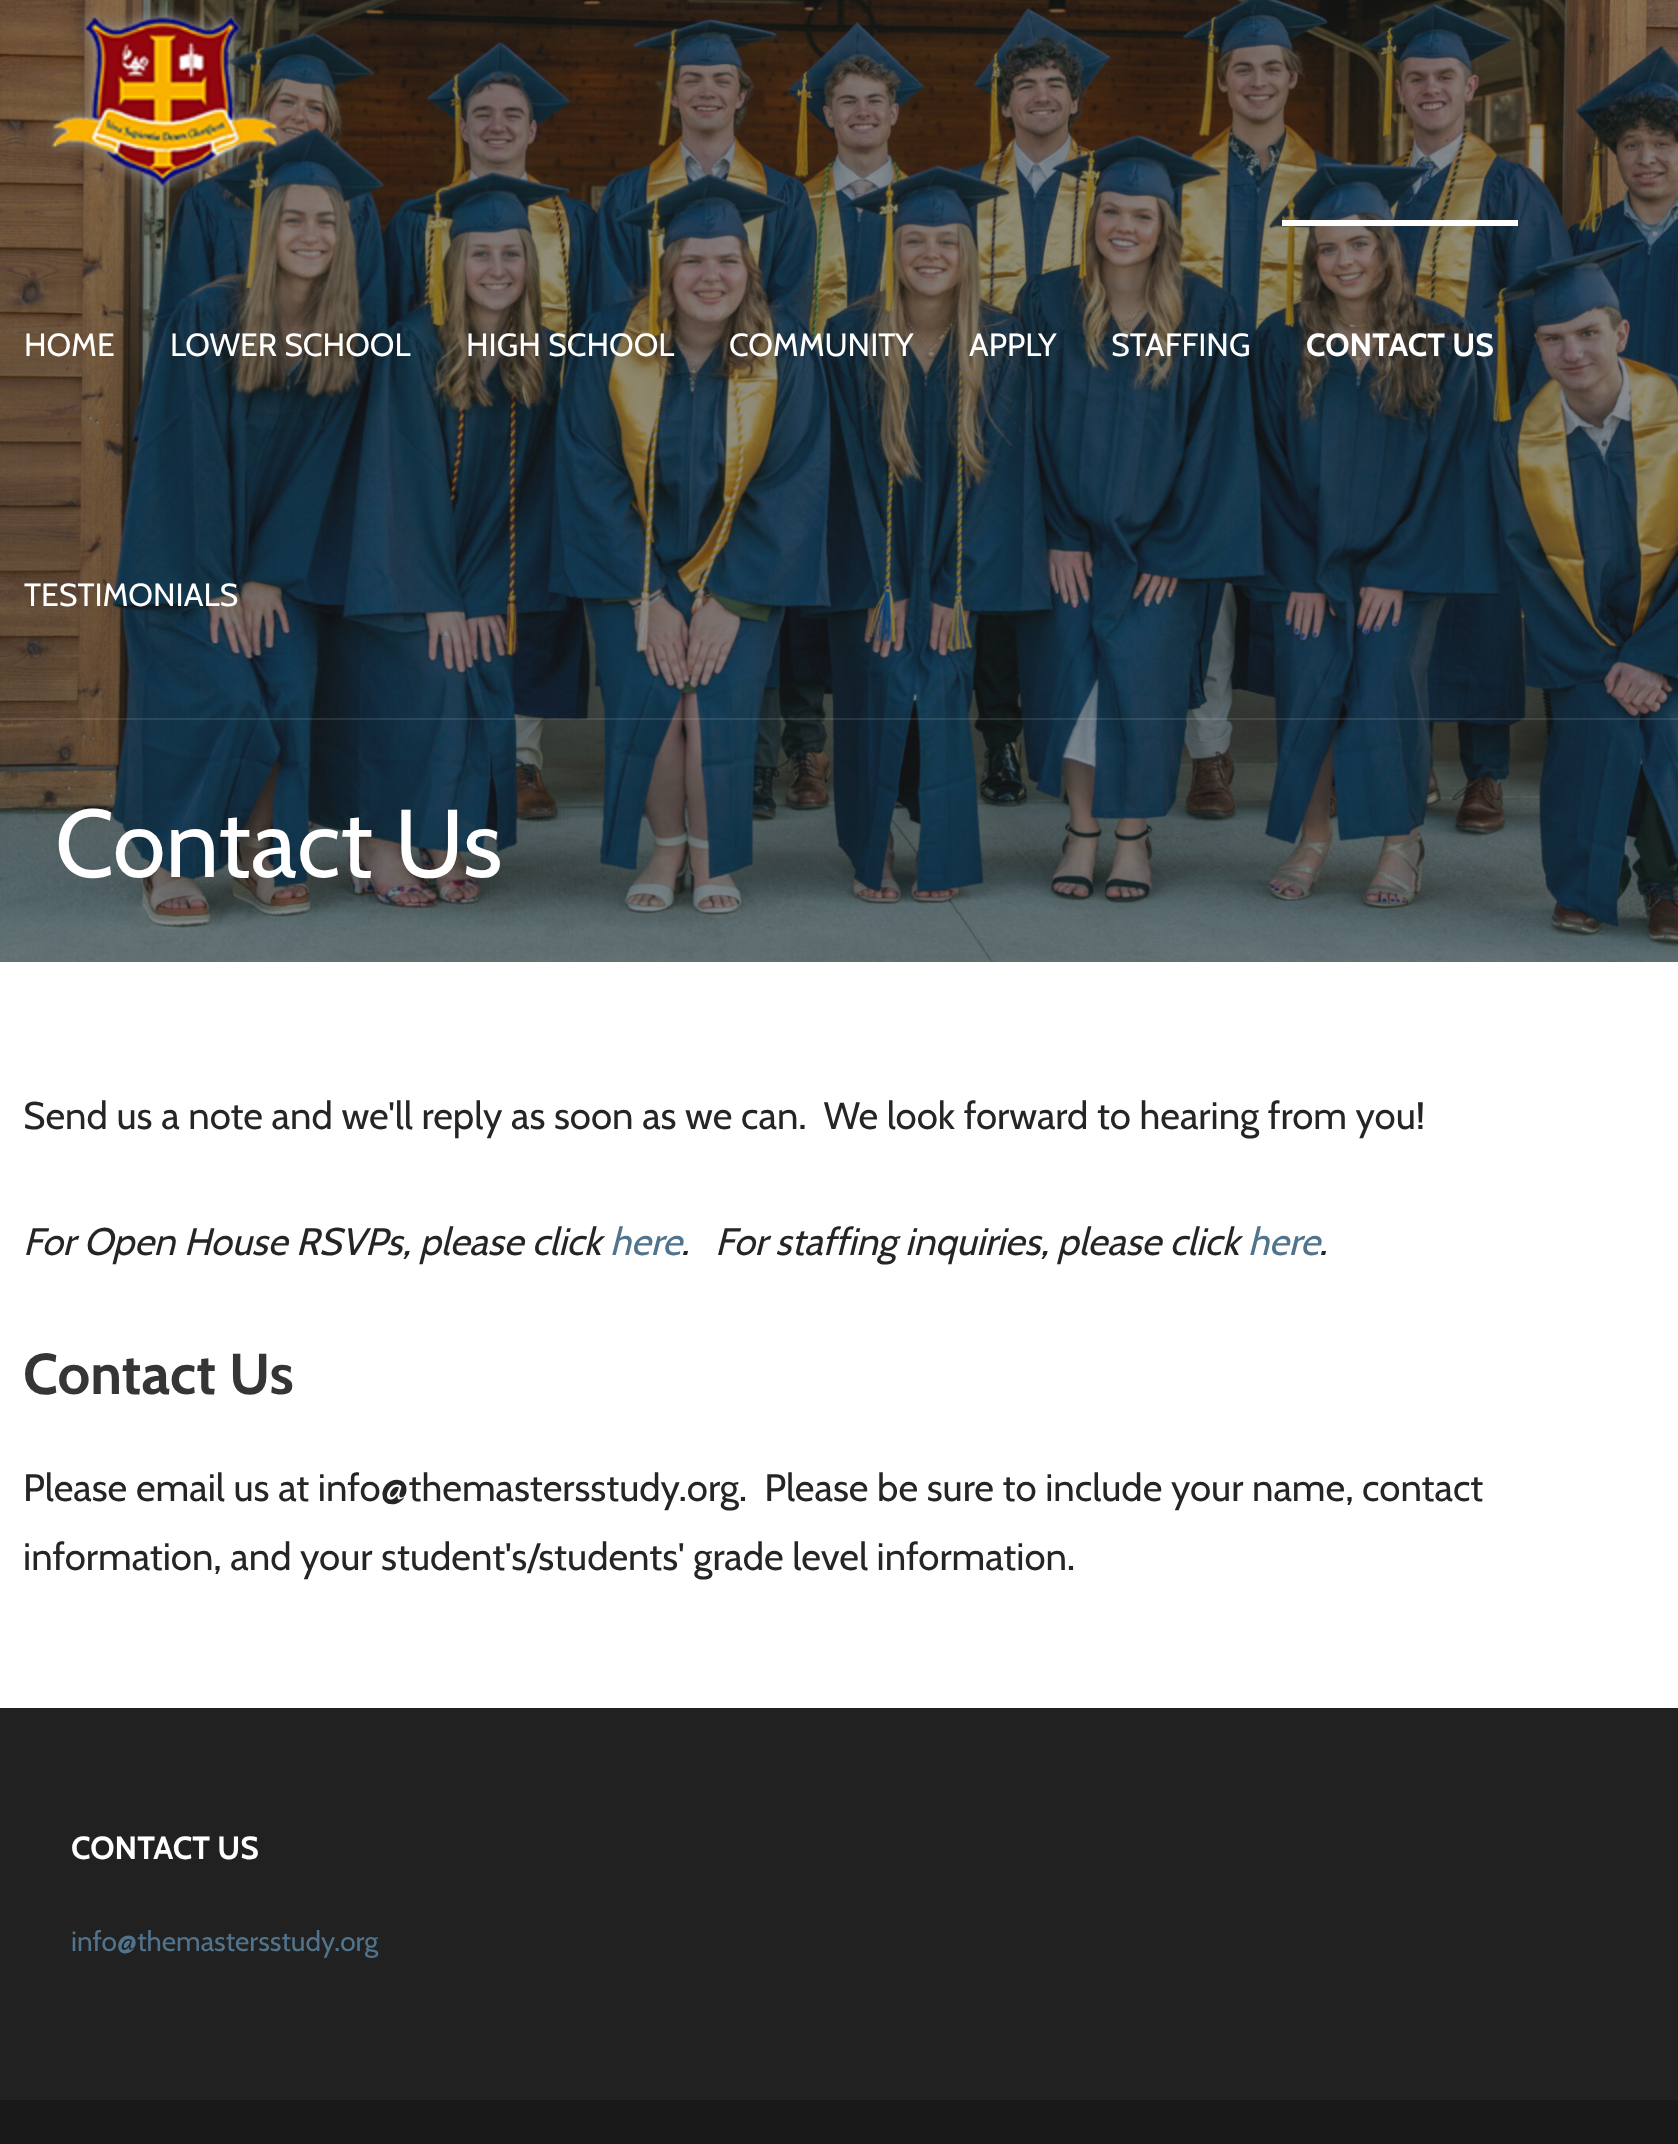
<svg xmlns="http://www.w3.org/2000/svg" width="1678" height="2144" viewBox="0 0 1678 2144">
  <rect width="100%" height="100%" fill="rgb(255,255,255)"/>
  <image x="0" y="0" width="1678" height="962" href="pic1.png"/>
  <rect x="0" y="718" width="1678" height="2" fill="rgba(255,255,255,0.1)"/>
  <image x="47" y="6" width="237" height="184" href="pic2.png"/>
  <g font-family="Cabin" font-size="32" fill="rgb(255,255,255)">
    <text x="24" y="356">HOME</text>
    <text x="170" y="356">LOWER SCHOOL</text>
    <text x="466" y="356">HIGH SCHOOL</text>
    <text x="729" y="356">COMMUNITY</text>
    <text x="969" y="356">APPLY</text>
    <text x="1111" y="356">STAFFING</text>
  </g>
  <rect x="1282" y="220" width="236" height="6" fill="rgb(255,255,255)"/>
  <text x="1306" y="356" font-family="Cabin" font-size="32" font-weight="bold" fill="rgb(255,255,255)">CONTACT US</text>
  <text x="24" y="606" font-family="Cabin" font-size="32" fill="rgb(255,255,255)">TESTIMONIALS</text>
  <text x="55" y="877" font-family="Cabin" font-size="96" fill="rgb(255,255,255)">Contact Us</text>
  <text x="23" y="1129" font-family="Cabin" font-size="38.4" fill="rgb(37,37,37)" xml:space="preserve">Send us a note and we'll reply as soon as we can.  We look forward to hearing from you!</text>
  <text x="23" y="1255" font-family="Cabin" font-size="38.4" font-style="italic" fill="rgb(37,37,37)">For Open House RSVPs, please click</text>
  <text x="610" y="1255" font-family="Cabin" font-size="38.4" font-style="italic" fill="rgb(81,116,142)">here</text>
  <g font-family="Cabin" font-size="38.4" font-style="italic" fill="rgb(37,37,37)">
    <text x="681" y="1255">.</text>
    <text x="715" y="1255">For staffing inquiries, please click</text>
  </g>
  <text x="1248" y="1255" font-family="Cabin" font-size="38.4" font-style="italic" fill="rgb(81,116,142)">here</text>
  <text x="1319" y="1255" font-family="Cabin" font-size="38.4" font-style="italic" fill="rgb(37,37,37)">.</text>
  <text x="23" y="1394" font-family="Cabin" font-size="57.5" font-weight="bold" fill="rgb(53,53,53)">Contact Us</text>
  <g font-family="Cabin" font-size="38.4" fill="rgb(37,37,37)">
    <text xml:space="preserve"><tspan x="23" y="1501">Please email us at info@themastersstudy.org.  Please be sure to include your name, contact</tspan><tspan x="23" y="1570">information, and your student's/students' grade level information.</tspan></text>
  </g>
  <rect x="0" y="1708" width="1678" height="392" fill="rgb(33,33,33)"/>
  <text x="71" y="1859" font-family="Cabin" font-size="32" font-weight="bold" fill="rgb(255,255,255)">CONTACT US</text>
  <text x="71" y="1951" font-family="Cabin" font-size="28" fill="rgb(81,116,142)">info@themastersstudy.org</text>
  <rect x="0" y="2100" width="1678" height="44" fill="rgb(25,25,25)"/>
</svg>
